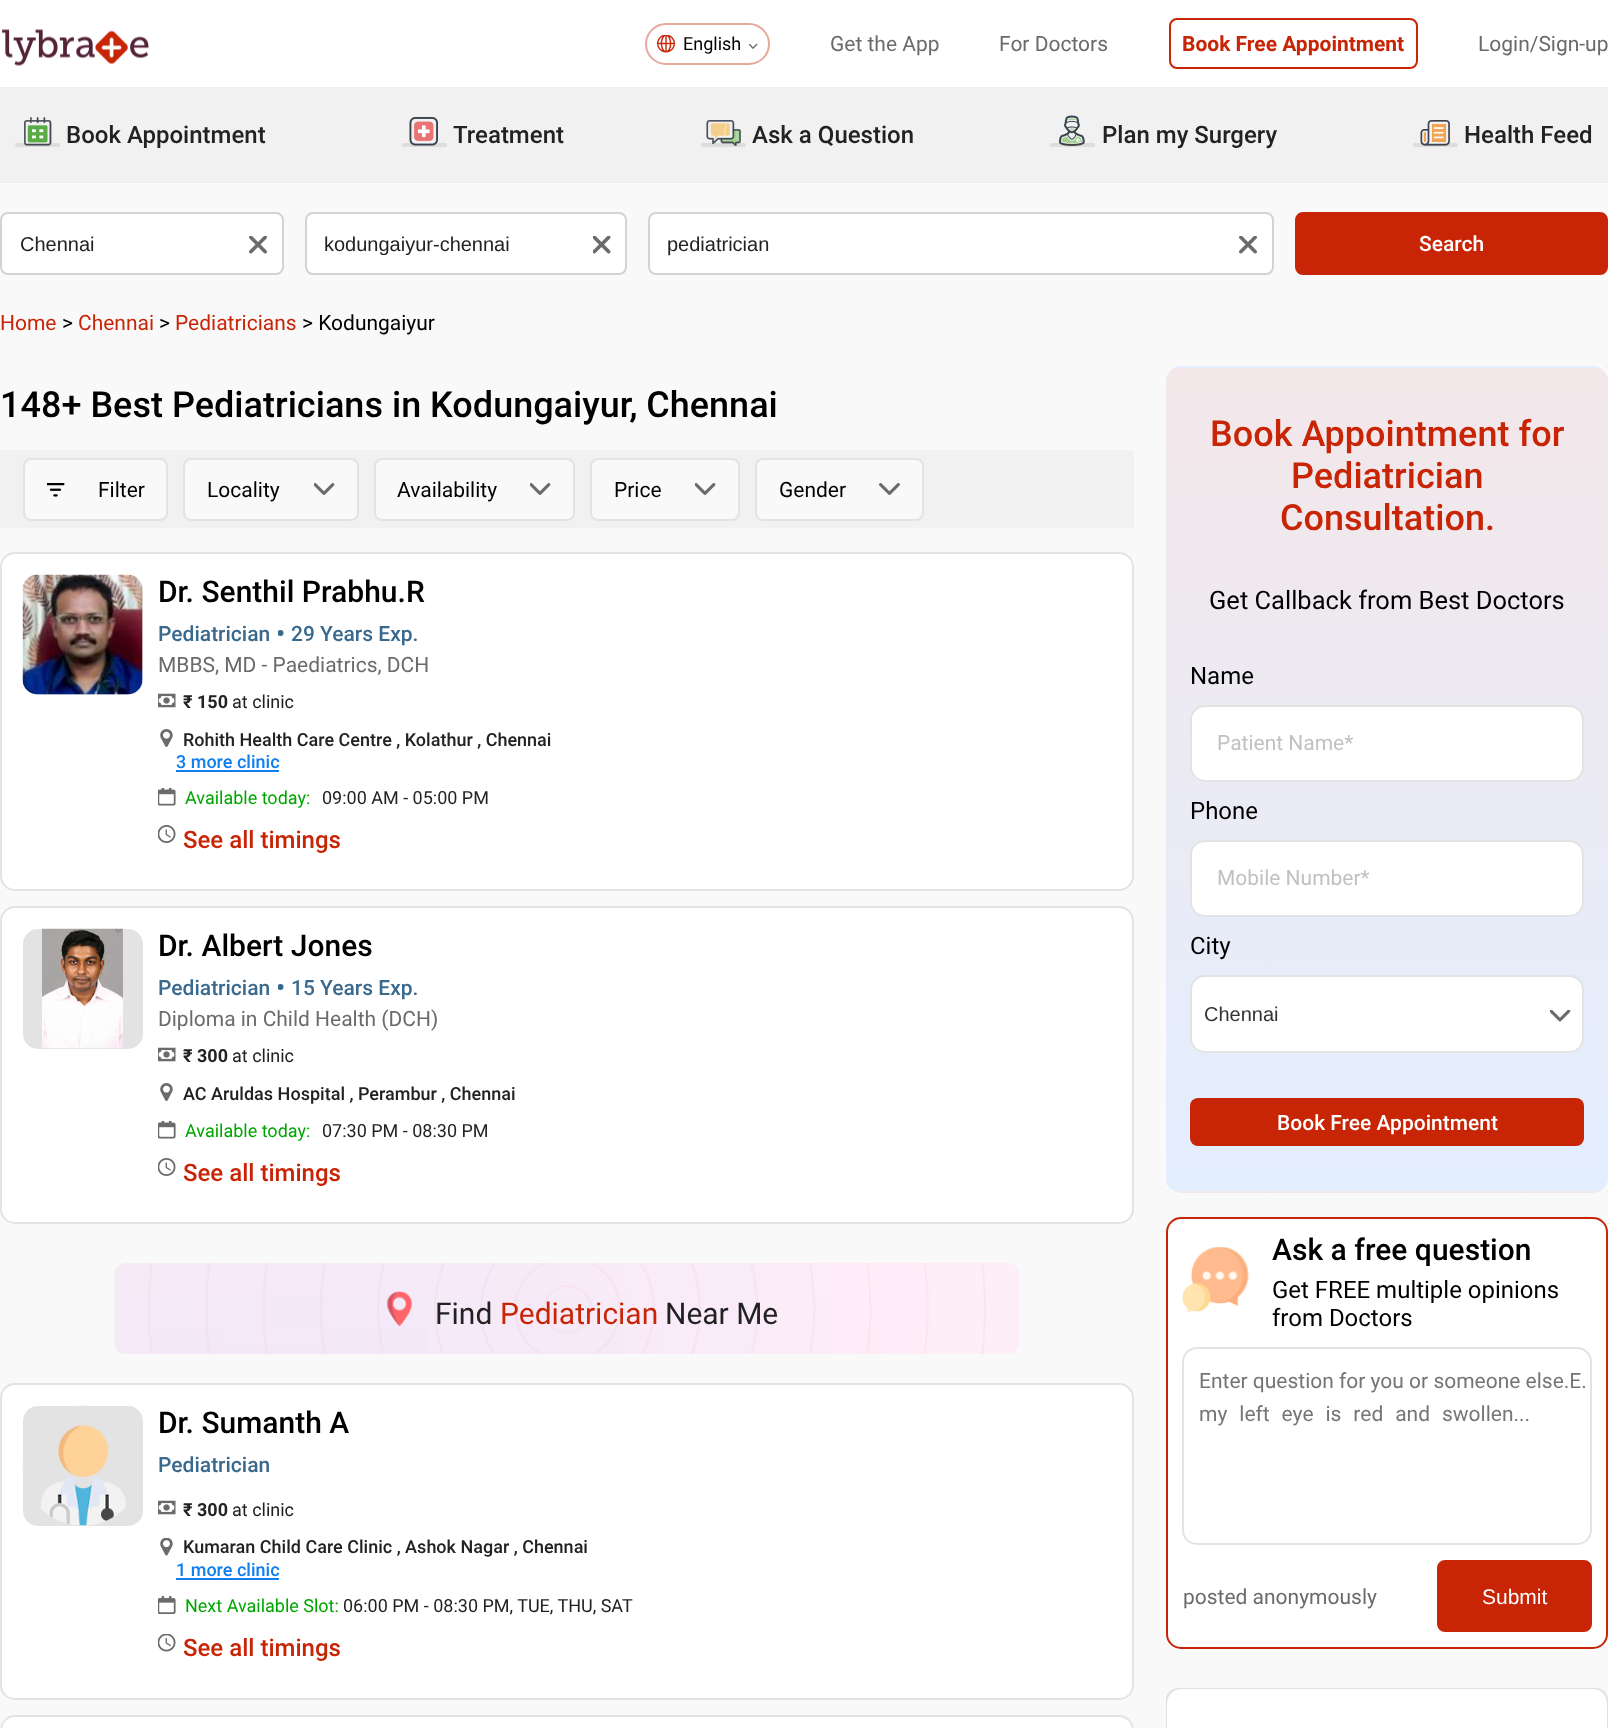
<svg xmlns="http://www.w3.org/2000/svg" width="1608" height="1728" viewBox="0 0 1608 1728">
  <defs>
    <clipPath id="clip1"><rect x="324" y="233" width="284" height="22"/></clipPath>
    <clipPath id="clip2"><rect x="278" y="630" width="6" height="6"/></clipPath>
    <clipPath id="clip3"><rect x="278" y="984" width="6" height="6"/></clipPath>
    <clipPath id="clip4"><rect x="1166" y="366" width="442" height="827" rx="15"/></clipPath>
    <linearGradient id="g1" gradientUnits="userSpaceOnUse" x1="1387" y1="-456" x2="1387" y2="368"><stop offset="0" stop-color="rgb(243,231,233)"/><stop offset="1" stop-color="rgb(227,238,255)"/></linearGradient>
    <linearGradient id="g2" gradientUnits="userSpaceOnUse" x1="1387" y1="368" x2="1387" y2="1191"><stop offset="0" stop-color="rgb(243,231,233)"/><stop offset="1" stop-color="rgb(227,238,255)"/></linearGradient>
    <linearGradient id="g3" gradientUnits="userSpaceOnUse" x1="1387" y1="1191" x2="1387" y2="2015"><stop offset="0" stop-color="rgb(243,231,233)"/><stop offset="1" stop-color="rgb(227,238,255)"/></linearGradient>
  </defs>
  <rect width="100%" height="100%" fill="rgb(238,238,238)"/>
  <rect x="0" y="0" width="1608" height="87" fill="rgb(255,255,255)"/>
  <image x="2" y="29" width="147" height="37" href="pic1.png"/>
  <rect x="646" y="24" width="123" height="40" rx="20" fill="none" stroke="rgb(233,168,155)" stroke-width="2"/>
  <image x="657" y="35" width="18" height="18" href="pic2.png"/>
  <text x="683" y="50" font-family="Roboto" font-size="18" fill="rgb(0,0,0)">English</text>
  <image x="749" y="44" width="9" height="5" href="pic3.png"/>
  <g font-family="Roboto" font-size="21" fill="rgb(108,106,106)">
    <text x="830" y="51">Get the App</text>
    <text x="999" y="51">For Doctors</text>
  </g>
  <rect x="1170" y="19" width="247" height="49" rx="7" fill="none" stroke="rgb(200,37,6)" stroke-width="2"/>
  <text x="1182" y="51" font-family="Roboto" font-size="21" font-weight="bold" fill="rgb(200,37,6)">Book Free Appointment</text>
  <text x="1478" y="51" font-family="Roboto" font-size="21" fill="rgb(108,106,106)">Login/Sign-up</text>
  <rect x="0" y="87" width="1608" height="95" fill="rgb(241,241,241)"/>
  <image x="15" y="117" width="45" height="30" href="pic4.png"/>
  <text x="66" y="143" font-family="Roboto" font-size="24" font-weight="500" fill="rgb(34,34,34)">Book Appointment</text>
  <image x="402" y="117" width="45" height="30" href="pic5.png"/>
  <text x="453" y="143" font-family="Roboto" font-size="24" font-weight="500" fill="rgb(34,34,34)">Treatment</text>
  <image x="701" y="120" width="45" height="27" href="pic6.png"/>
  <text x="752" y="143" font-family="Roboto" font-size="24" font-weight="500" fill="rgb(34,34,34)">Ask a Question</text>
  <image x="1050" y="115" width="45" height="32" href="pic7.png"/>
  <text x="1102" y="143" font-family="Roboto" font-size="24" font-weight="500" fill="rgb(34,34,34)">Plan my Surgery</text>
  <image x="1413" y="120" width="45" height="27" href="pic8.png"/>
  <text x="1464" y="143" font-family="Roboto" font-size="24" font-weight="500" fill="rgb(34,34,34)">Health Feed</text>
  <rect x="0" y="183" width="1608" height="1545" fill="rgb(249,249,249)"/>
  <rect x="1" y="213" width="282" height="61" rx="7" fill="rgb(255,255,255)" stroke="rgb(211,211,211)" stroke-width="2"/>
  <text x="20" y="251" font-family="Liberation Sans" font-size="20" fill="rgb(34,34,34)">Chennai</text>
  <image x="249" y="236" width="18" height="18" href="pic9.png"/>
  <rect x="306" y="213" width="320" height="61" rx="7" fill="rgb(255,255,255)" stroke="rgb(211,211,211)" stroke-width="2"/>
  <g clip-path="url(#clip1)">
    <text x="324" y="251" font-family="Liberation Sans" font-size="20" fill="rgb(34,34,34)">kodungaiyur-chennai</text>
  </g>
  <image x="593" y="236" width="18" height="18" href="pic10.png"/>
  <rect x="649" y="213" width="624" height="61" rx="7" fill="rgb(255,255,255)" stroke="rgb(211,211,211)" stroke-width="2"/>
  <text x="667" y="251" font-family="Liberation Sans" font-size="20" fill="rgb(34,34,34)">pediatrician</text>
  <image x="1239" y="236" width="18" height="18" href="pic9.png"/>
  <rect x="1296" y="213" width="311" height="61" rx="7" fill="rgb(200,37,6)" stroke="rgb(200,37,6)" stroke-width="2"/>
  <text x="1419" y="251" font-family="Roboto" font-size="21" font-weight="500" fill="rgb(255,255,255)">Search</text>
  <text x="0" y="330" font-family="Roboto" font-size="21" fill="rgb(200,37,6)">Home</text>
  <text x="62" y="330" font-family="Roboto" font-size="21" fill="rgb(0,0,0)">&gt;</text>
  <text x="78" y="330" font-family="Roboto" font-size="21" fill="rgb(200,37,6)">Chennai</text>
  <text x="159" y="330" font-family="Roboto" font-size="21" fill="rgb(0,0,0)">&gt;</text>
  <text x="175" y="330" font-family="Roboto" font-size="21" fill="rgb(200,37,6)">Pediatricians</text>
  <text x="302" y="330" font-family="Roboto" font-size="21" fill="rgb(0,0,0)">&gt; Kodungaiyur</text>
  <text x="0" y="417" font-family="Roboto" font-size="36" font-weight="500" fill="rgb(0,0,0)">148+ Best Pediatricians in Kodungaiyur, Chennai</text>
  <rect x="0" y="450" width="1134" height="78" fill="rgb(241,241,241)"/>
  <rect x="24" y="459" width="143" height="61" rx="7" fill="rgb(249,249,249)" stroke="rgb(227,227,227)" stroke-width="2"/>
  <image x="47" y="483" width="18" height="14" href="pic11.png"/>
  <text x="98" y="497" font-family="Roboto" font-size="21" fill="rgb(0,0,0)">Filter</text>
  <rect x="184" y="459" width="174" height="61" rx="7" fill="rgb(249,249,249)" stroke="rgb(227,227,227)" stroke-width="2"/>
  <text x="207" y="497" font-family="Roboto" font-size="21" fill="rgb(0,0,0)">Locality</text>
  <image x="314" y="483" width="21" height="12" href="pic12.png"/>
  <rect x="375" y="459" width="199" height="61" rx="7" fill="rgb(249,249,249)" stroke="rgb(227,227,227)" stroke-width="2"/>
  <text x="397" y="497" font-family="Roboto" font-size="21" fill="rgb(0,0,0)">Availability</text>
  <image x="530" y="483" width="21" height="12" href="pic12.png"/>
  <rect x="591" y="459" width="148" height="61" rx="7" fill="rgb(249,249,249)" stroke="rgb(227,227,227)" stroke-width="2"/>
  <text x="614" y="497" font-family="Roboto" font-size="21" fill="rgb(0,0,0)">Price</text>
  <image x="695" y="483" width="21" height="12" href="pic12.png"/>
  <rect x="756" y="459" width="167" height="61" rx="7" fill="rgb(249,249,249)" stroke="rgb(227,227,227)" stroke-width="2"/>
  <text x="779" y="497" font-family="Roboto" font-size="21" fill="rgb(0,0,0)">Gender</text>
  <image x="879" y="483" width="21" height="12" href="pic13.png"/>
  <rect x="1" y="553" width="1132" height="337" rx="14" fill="rgb(255,255,255)" stroke="rgb(227,227,227)" stroke-width="2"/>
  <rect x="23" y="575" width="120" height="120" rx="15" fill="rgb(227,227,227)"/>
  <image x="22" y="574" width="121" height="121" href="pic14.png"/>
  <text x="158" y="602" font-family="Roboto" font-size="30" font-weight="500" fill="rgb(0,0,0)">Dr. Senthil Prabhu.R</text>
  <text x="158" y="641" font-family="Roboto" font-size="21" font-weight="500" fill="rgb(58,105,142)">Pediatrician</text>
  <g clip-path="url(#clip2)">
    <circle cx="280.5" cy="633" r="3" fill="rgb(58,105,142)"/>
  </g>
  <text x="291" y="641" font-family="Roboto" font-size="21" font-weight="500" fill="rgb(58,105,142)">29 Years Exp.</text>
  <text x="158" y="672" font-family="Roboto" font-size="21" fill="rgb(108,106,106)">MBBS, MD - Paediatrics, DCH</text>
  <image x="158" y="693" width="18" height="15" href="pic15.png"/>
  <text x="183" y="708" font-family="Roboto" font-size="18" font-weight="bold" fill="rgb(34,34,34)">₹ 150</text>
  <text x="232" y="708" font-family="Roboto" font-size="18" fill="rgb(34,34,34)">at clinic</text>
  <image x="160" y="729" width="13" height="18" href="pic16.png"/>
  <text x="183" y="746" font-family="Roboto" font-size="18" font-weight="500" fill="rgb(34,34,34)">Rohith Health Care Centre , Kolathur , Chennai</text>
  <text x="176" y="768" font-family="Roboto" font-size="18" font-weight="500" fill="rgb(16,126,239)">3 more clinic</text>
  <rect x="176" y="770" width="103" height="2" fill="rgb(16,126,239)"/>
  <image x="158" y="788" width="18" height="18" href="pic17.png"/>
  <text x="185" y="804" font-family="Roboto" font-size="18" fill="rgb(0,166,0)">Available today:</text>
  <text x="322" y="804" font-family="Roboto" font-size="18" fill="rgb(34,34,34)">09:00 AM - 05:00 PM</text>
  <image x="158" y="825" width="18" height="18" href="pic18.png"/>
  <text x="183" y="848" font-family="Roboto" font-size="24" font-weight="500" fill="rgb(200,37,6)">See all timings</text>
  <rect x="1" y="907" width="1132" height="316" rx="14" fill="rgb(255,255,255)" stroke="rgb(227,227,227)" stroke-width="2"/>
  <rect x="23" y="929" width="120" height="120" rx="15" fill="rgb(227,227,227)"/>
  <image x="42" y="928" width="81" height="121" href="pic19.png"/>
  <text x="158" y="956" font-family="Roboto" font-size="30" font-weight="500" fill="rgb(0,0,0)">Dr. Albert Jones</text>
  <text x="158" y="995" font-family="Roboto" font-size="21" font-weight="500" fill="rgb(58,105,142)">Pediatrician</text>
  <g clip-path="url(#clip3)">
    <circle cx="280.5" cy="987" r="3" fill="rgb(58,105,142)"/>
  </g>
  <text x="291" y="995" font-family="Roboto" font-size="21" font-weight="500" fill="rgb(58,105,142)">15 Years Exp.</text>
  <text x="158" y="1026" font-family="Roboto" font-size="21" fill="rgb(108,106,106)">Diploma in Child Health (DCH)</text>
  <image x="158" y="1047" width="18" height="15" href="pic15.png"/>
  <text x="183" y="1062" font-family="Roboto" font-size="18" font-weight="bold" fill="rgb(34,34,34)">₹ 300</text>
  <text x="232" y="1062" font-family="Roboto" font-size="18" fill="rgb(34,34,34)">at clinic</text>
  <image x="160" y="1083" width="13" height="18" href="pic16.png"/>
  <text x="183" y="1100" font-family="Roboto" font-size="18" font-weight="500" fill="rgb(34,34,34)">AC Aruldas Hospital , Perambur , Chennai</text>
  <image x="158" y="1121" width="18" height="18" href="pic17.png"/>
  <text x="185" y="1137" font-family="Roboto" font-size="18" fill="rgb(0,166,0)">Available today:</text>
  <text x="322" y="1137" font-family="Roboto" font-size="18" fill="rgb(34,34,34)">07:30 PM - 08:30 PM</text>
  <image x="158" y="1158" width="18" height="18" href="pic18.png"/>
  <text x="183" y="1181" font-family="Roboto" font-size="24" font-weight="500" fill="rgb(200,37,6)">See all timings</text>
  <image x="114" y="1263" width="905" height="91" href="pic20.png"/>
  <text x="435" y="1324" font-family="Roboto" font-size="30" fill="rgb(34,34,34)">Find</text>
  <text x="500" y="1324" font-family="Roboto" font-size="30" fill="rgb(200,37,6)">Pediatrician</text>
  <text x="665" y="1324" font-family="Roboto" font-size="30" fill="rgb(34,34,34)">Near Me</text>
  <rect x="1" y="1384" width="1132" height="315" rx="14" fill="rgb(255,255,255)" stroke="rgb(227,227,227)" stroke-width="2"/>
  <rect x="23" y="1406" width="120" height="120" rx="15" fill="rgb(227,227,227)"/>
  <image x="22" y="1405" width="104" height="121" href="pic21.png"/>
  <text x="158" y="1433" font-family="Roboto" font-size="30" font-weight="500" fill="rgb(0,0,0)">Dr. Sumanth A</text>
  <text x="158" y="1472" font-family="Roboto" font-size="21" font-weight="500" fill="rgb(58,105,142)">Pediatrician</text>
  <image x="158" y="1500" width="18" height="15" href="pic15.png"/>
  <text x="183" y="1516" font-family="Roboto" font-size="18" font-weight="bold" fill="rgb(34,34,34)">₹ 300</text>
  <text x="232" y="1516" font-family="Roboto" font-size="18" fill="rgb(34,34,34)">at clinic</text>
  <image x="160" y="1538" width="13" height="18" href="pic22.png"/>
  <text x="183" y="1553" font-family="Roboto" font-size="18" font-weight="500" fill="rgb(34,34,34)">Kumaran Child Care Clinic , Ashok Nagar , Chennai</text>
  <text x="176" y="1576" font-family="Roboto" font-size="18" font-weight="500" fill="rgb(16,126,239)">1 more clinic</text>
  <rect x="176" y="1578" width="103" height="2" fill="rgb(16,126,239)"/>
  <image x="158" y="1596" width="18" height="18" href="pic23.png"/>
  <text x="185" y="1612" font-family="Roboto" font-size="18" fill="rgb(0,166,0)">Next Available Slot:</text>
  <text x="343" y="1612" font-family="Roboto" font-size="18" fill="rgb(34,34,34)">06:00 PM - 08:30 PM, TUE, THU, SAT</text>
  <image x="158" y="1634" width="18" height="18" href="pic24.png"/>
  <text x="183" y="1656" font-family="Roboto" font-size="24" font-weight="500" fill="rgb(200,37,6)">See all timings</text>
  <rect x="1" y="1716" width="1132" height="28" rx="14" fill="rgb(255,255,255)" stroke="rgb(227,227,227)" stroke-width="2"/>
  <g clip-path="url(#clip4)">
    <rect x="1166" y="366" width="442" height="2" fill="url(#g1)"/>
    <rect x="1166" y="368" width="442" height="823" fill="url(#g2)"/>
    <rect x="1166" y="1191" width="442" height="2" fill="url(#g3)"/>
  </g>
  <image x="1165" y="366" width="443" height="827" href="pic25.png"/>
  <g font-family="Roboto" font-size="36" font-weight="500" fill="rgb(200,37,6)">
    <text x="1210" y="446">Book Appointment for</text>
    <text x="1291" y="488">Pediatrician</text>
    <text x="1280" y="530">Consultation.</text>
  </g>
  <text x="1209" y="609" font-family="Roboto" font-size="25.5" fill="rgb(0,0,0)">Get Callback from Best Doctors</text>
  <text x="1190" y="684" font-family="Roboto" font-size="24" fill="rgb(0,0,0)">Name</text>
  <rect x="1191" y="706" width="392" height="75" rx="14" fill="rgb(255,255,255)" stroke="rgb(227,227,227)" stroke-width="2"/>
  <text x="1217" y="750" font-family="Roboto" font-size="21" fill="rgb(193,193,193)">Patient Name*</text>
  <text x="1190" y="819" font-family="Roboto" font-size="24" fill="rgb(0,0,0)">Phone</text>
  <rect x="1191" y="841" width="392" height="75" rx="14" fill="rgb(255,255,255)" stroke="rgb(227,227,227)" stroke-width="2"/>
  <text x="1217" y="885" font-family="Roboto" font-size="21" fill="rgb(193,193,193)">Mobile Number*</text>
  <text x="1190" y="954" font-family="Roboto" font-size="24" fill="rgb(0,0,0)">City</text>
  <rect x="1191" y="976" width="392" height="76" rx="14" fill="rgb(255,255,255)" stroke="rgb(227,227,227)" stroke-width="2"/>
  <text x="1204" y="1021" font-family="Liberation Sans" font-size="20" fill="rgb(51,51,51)">Chennai</text>
  <image x="1550" y="1010" width="21" height="12" href="pic26.png"/>
  <rect x="1190" y="1098" width="394" height="48" rx="8" fill="rgb(200,37,6)"/>
  <text x="1277" y="1130" font-family="Roboto" font-size="21" font-weight="500" fill="rgb(255,255,255)">Book Free Appointment</text>
  <rect x="1167" y="1218" width="440" height="430" rx="14" fill="rgb(255,255,255)" stroke="rgb(200,37,6)" stroke-width="2"/>
  <image x="1182" y="1247" width="67" height="66" href="pic27.png"/>
  <text x="1272" y="1260" font-family="Roboto" font-size="30" font-weight="500" fill="rgb(0,0,0)">Ask a free question</text>
  <g font-family="Roboto" font-size="24" fill="rgb(0,0,0)">
    <text>
      <tspan x="1272" y="1298">Get FREE multiple opinions</tspan>
      <tspan x="1272" y="1326">from Doctors</tspan>
    </text>
  </g>
  <rect x="1183" y="1348" width="408" height="196" rx="14" fill="none" stroke="rgb(227,227,227)" stroke-width="2"/>
  <g font-family="Roboto" font-size="21" fill="rgb(117,117,117)">
    <text>
      <tspan x="1199" y="1388">Enter question for you or someone else.E.</tspan>
      <tspan x="1199" y="1421" word-spacing="6.75">my left eye is red and swollen...</tspan>
    </text>
  </g>
  <text x="1183" y="1604" font-family="Roboto" font-size="21" fill="rgb(108,106,106)">posted anonymously</text>
  <rect x="1438" y="1561" width="153" height="70" rx="7" fill="rgb(200,37,6)" stroke="rgb(200,37,6)" stroke-width="2"/>
  <text x="1482" y="1604" font-family="Liberation Sans" font-size="21" fill="rgb(255,255,255)">Submit</text>
  <rect x="1167" y="1689" width="440" height="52" rx="11" fill="none" stroke="rgb(222,226,226)" stroke-width="2"/>
  <rect x="1167" y="1689" width="440" height="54" rx="15" fill="rgb(255,255,255)"/>
</svg>
